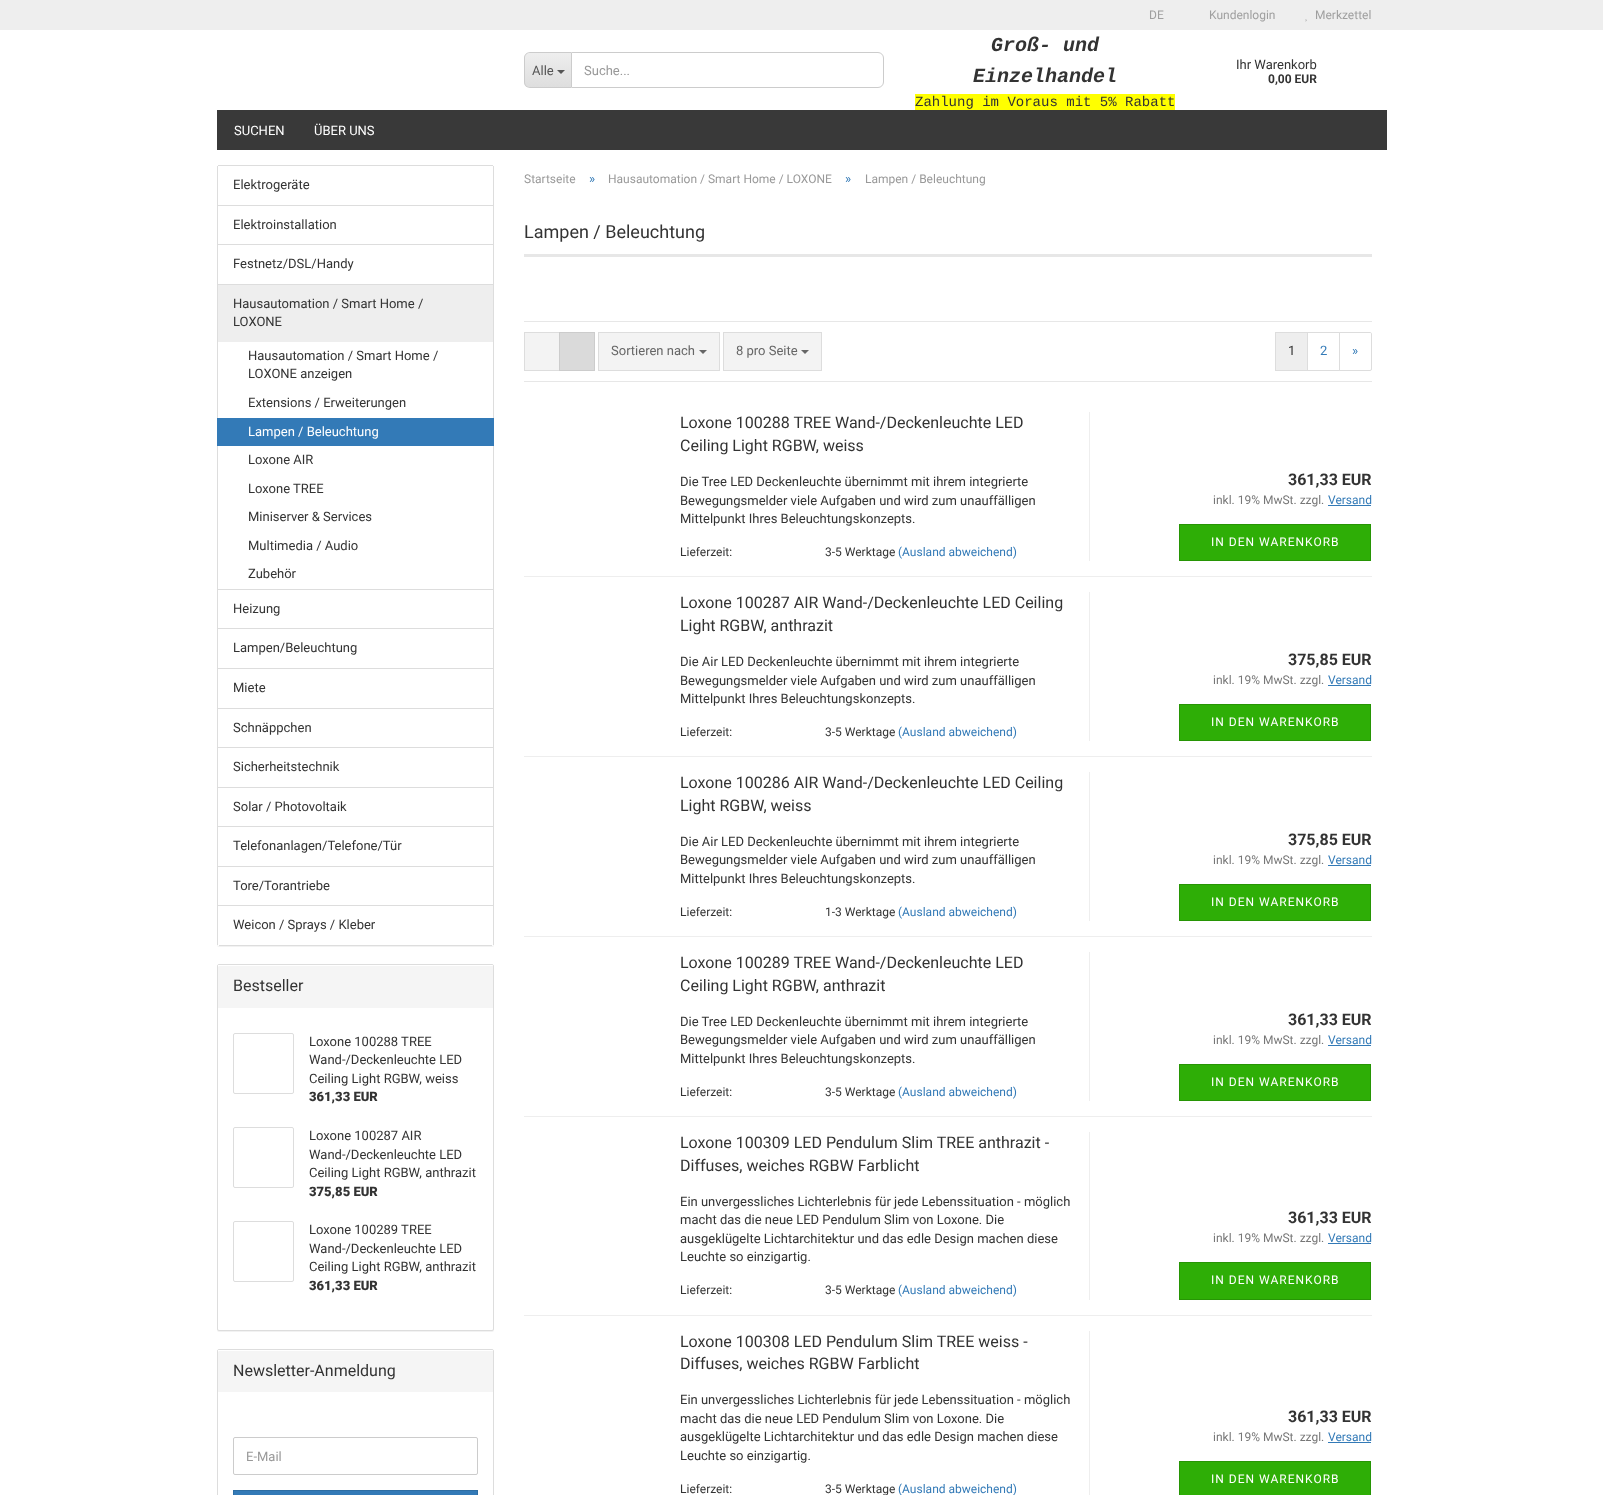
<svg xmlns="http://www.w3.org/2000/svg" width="1603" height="1495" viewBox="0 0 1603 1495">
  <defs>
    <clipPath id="clip1"><path d="M530 52H571V88H530C526.5 88 524 85.5 524 82V58C524 54.5 526.5 52 530 52Z"/></clipPath>
    <linearGradient id="g1" gradientUnits="userSpaceOnUse" x1="548" y1="53" x2="548" y2="87"><stop offset="0" stop-color="rgb(238,238,238)"/><stop offset="1" stop-color="rgb(222,222,222)"/></linearGradient>
  </defs>
  <rect width="100%" height="100%" fill="rgb(255,255,255)"/>
  <rect x="0" y="0" width="1603" height="30" fill="rgb(238,238,238)"/>
  <g font-family="Roboto" font-size="12" fill="rgb(159,159,159)">
    <text x="1149" y="19">DE</text>
    <text x="1209" y="19">Kundenlogin</text>
    <text x="1315" y="19">Merkzettel</text>
  </g>
  <image x="1305" y="19" width="2" height="3" href="pic1.png"/>
  <g clip-path="url(#clip1)">
    <rect x="524" y="53" width="47" height="34" fill="url(#g1)"/>
  </g>
  <path d="M530 52H571V88H530C527 88 524 85 524 82V58C524 55 527 52 530 52ZM530 53H571V87H530C527 87 525 85 525 82V58C525 55 527 53 530 53Z" fill="rgb(204,204,204)" fill-rule="evenodd"/>
  <text x="532" y="75" font-family="Roboto" font-size="13" fill="rgb(85,85,85)">Alle</text>
  <path d="M557 70H565L561 74Z" fill="rgb(85,85,85)"/>
  <path d="M571.5 52.5H878C881 52.5 883.5 55 883.5 58V82C883.5 85 881 87.5 878 87.5H571.5Z" fill="none" stroke="rgb(204,204,204)"/>
  <text x="584" y="75" font-family="Roboto" font-size="13" fill="rgb(153,153,153)">Suche...</text>
  <g font-family="Liberation Mono" font-size="20" font-weight="bold" font-style="italic" fill="rgb(51,51,51)">
    <text x="991" y="51">Groß- und</text>
    <text x="973" y="82">Einzelhandel</text>
  </g>
  <rect x="915" y="94" width="260" height="16" fill="rgb(255,255,0)"/>
  <text x="915" y="106" font-family="Liberation Mono" font-size="14" fill="rgb(51,51,51)">Zahlung im Voraus mit 5% Rabatt</text>
  <text x="1236" y="69" font-family="Roboto" font-size="13" fill="rgb(51,51,51)">Ihr Warenkorb</text>
  <text x="1268" y="83" font-family="Roboto" font-size="12" font-weight="bold" fill="rgb(51,51,51)">0,00 EUR</text>
  <rect x="217" y="110" width="1170" height="40" fill="rgb(57,57,57)"/>
  <g font-family="Roboto" font-size="13" fill="rgb(255,255,255)">
    <text x="234" y="135">SUCHEN</text>
    <text x="314" y="135">ÜBER UNS</text>
  </g>
  <rect x="217" y="166" width="277" height="781" rx="2" fill="rgba(0,0,0,0.05)" filter="blur(0.5px)"/>
  <rect x="217" y="165" width="277" height="781" rx="2" fill="rgb(255,255,255)"/>
  <rect x="218" y="165" width="275" height="1" fill="rgb(221,221,221)"/>
  <rect x="493" y="166" width="1" height="779" fill="rgb(221,221,221)"/>
  <rect x="217" y="166" width="1" height="779" fill="rgb(221,221,221)"/>
  <rect x="218" y="205" width="275" height="1" fill="rgb(221,221,221)"/>
  <text x="233" y="189" font-family="Roboto" font-size="13" fill="rgb(51,51,51)">Elektrogeräte</text>
  <rect x="218" y="244" width="275" height="1" fill="rgb(221,221,221)"/>
  <text x="233" y="229" font-family="Roboto" font-size="13" fill="rgb(51,51,51)">Elektroinstallation</text>
  <rect x="218" y="284" width="275" height="1" fill="rgb(221,221,221)"/>
  <text x="233" y="268" font-family="Roboto" font-size="13" fill="rgb(51,51,51)">Festnetz/DSL/Handy</text>
  <rect x="218" y="589" width="275" height="1" fill="rgb(221,221,221)"/>
  <rect x="218" y="285" width="275" height="57" fill="rgb(238,238,238)"/>
  <g font-family="Roboto" font-size="13" fill="rgb(51,51,51)">
    <text>
      <tspan x="233" y="308">Hausautomation / Smart Home /</tspan>
      <tspan x="233" y="326">LOXONE</tspan>
    </text>
    <text>
      <tspan x="248" y="360">Hausautomation / Smart Home /</tspan>
      <tspan x="248" y="378">LOXONE anzeigen</tspan>
    </text>
    <text x="248" y="407">Extensions / Erweiterungen</text>
  </g>
  <rect x="217" y="418" width="277" height="28" fill="rgb(51,122,183)"/>
  <text x="248" y="436" font-family="Roboto" font-size="13" fill="rgb(255,255,255)">Lampen / Beleuchtung</text>
  <g font-family="Roboto" font-size="13" fill="rgb(51,51,51)">
    <text x="248" y="464">Loxone AIR</text>
    <text x="248" y="493">Loxone TREE</text>
    <text x="248" y="521">Miniserver &amp; Services</text>
    <text x="248" y="550">Multimedia / Audio</text>
    <text x="248" y="578">Zubehör</text>
  </g>
  <rect x="218" y="628" width="275" height="1" fill="rgb(221,221,221)"/>
  <text x="233" y="613" font-family="Roboto" font-size="13" fill="rgb(51,51,51)">Heizung</text>
  <rect x="218" y="668" width="275" height="1" fill="rgb(221,221,221)"/>
  <text x="233" y="652" font-family="Roboto" font-size="13" fill="rgb(51,51,51)">Lampen/Beleuchtung</text>
  <rect x="218" y="708" width="275" height="1" fill="rgb(221,221,221)"/>
  <text x="233" y="692" font-family="Roboto" font-size="13" fill="rgb(51,51,51)">Miete</text>
  <rect x="218" y="747" width="275" height="1" fill="rgb(221,221,221)"/>
  <text x="233" y="732" font-family="Roboto" font-size="13" fill="rgb(51,51,51)">Schnäppchen</text>
  <rect x="218" y="787" width="275" height="1" fill="rgb(221,221,221)"/>
  <text x="233" y="771" font-family="Roboto" font-size="13" fill="rgb(51,51,51)">Sicherheitstechnik</text>
  <rect x="218" y="826" width="275" height="1" fill="rgb(221,221,221)"/>
  <text x="233" y="811" font-family="Roboto" font-size="13" fill="rgb(51,51,51)">Solar / Photovoltaik</text>
  <rect x="218" y="866" width="275" height="1" fill="rgb(221,221,221)"/>
  <text x="233" y="850" font-family="Roboto" font-size="13" fill="rgb(51,51,51)">Telefonanlagen/Telefone/Tür</text>
  <rect x="218" y="905" width="275" height="1" fill="rgb(221,221,221)"/>
  <text x="233" y="890" font-family="Roboto" font-size="13" fill="rgb(51,51,51)">Tore/Torantriebe</text>
  <rect x="219" y="945" width="273" height="1" fill="rgb(221,221,221)"/>
  <text x="233" y="929" font-family="Roboto" font-size="13" fill="rgb(51,51,51)">Weicon / Sprays / Kleber</text>
  <rect x="217" y="965" width="277" height="367" rx="2" fill="rgba(0,0,0,0.05)" filter="blur(0.5px)"/>
  <rect x="217.5" y="964.5" width="276" height="366" rx="1.5" fill="rgb(255,255,255)" stroke="rgb(221,221,221)"/>
  <path d="M219 965H492C492.5 965 493 965.5 493 966V1008H218V966C218 965.5 218.5 965 219 965Z" fill="rgb(245,245,245)"/>
  <path d="M219 966H492C493 966 493 966 493 967C493 966 493 965 492 965H219H218V967Z" fill="rgb(255,255,255)"/>
  <text x="233" y="991" font-family="Roboto" font-size="16" fill="rgb(51,51,51)">Bestseller</text>
  <rect x="233.5" y="1033.5" width="60" height="60" rx="1.5" fill="none" stroke="rgb(221,221,221)"/>
  <g font-family="Roboto" font-size="13" fill="rgb(51,51,51)">
    <text>
      <tspan x="309" y="1046">Loxone 100288 TREE</tspan>
      <tspan x="309" y="1064">Wand-/Deckenleuchte LED</tspan>
      <tspan x="309" y="1083">Ceiling Light RGBW, weiss</tspan>
    </text>
  </g>
  <text x="309" y="1101" font-family="Roboto" font-size="13" font-weight="900" fill="rgb(51,51,51)">361,33 EUR</text>
  <rect x="233.5" y="1127.5" width="60" height="60" rx="1.5" fill="none" stroke="rgb(221,221,221)"/>
  <g font-family="Roboto" font-size="13" fill="rgb(51,51,51)">
    <text>
      <tspan x="309" y="1140">Loxone 100287 AIR</tspan>
      <tspan x="309" y="1159">Wand-/Deckenleuchte LED</tspan>
      <tspan x="309" y="1177">Ceiling Light RGBW, anthrazit</tspan>
    </text>
  </g>
  <text x="309" y="1196" font-family="Roboto" font-size="13" font-weight="900" fill="rgb(51,51,51)">375,85 EUR</text>
  <rect x="233.5" y="1221.5" width="60" height="60" rx="1.5" fill="none" stroke="rgb(221,221,221)"/>
  <g font-family="Roboto" font-size="13" fill="rgb(51,51,51)">
    <text>
      <tspan x="309" y="1234">Loxone 100289 TREE</tspan>
      <tspan x="309" y="1253">Wand-/Deckenleuchte LED</tspan>
      <tspan x="309" y="1271">Ceiling Light RGBW, anthrazit</tspan>
    </text>
  </g>
  <text x="309" y="1290" font-family="Roboto" font-size="13" font-weight="900" fill="rgb(51,51,51)">361,33 EUR</text>
  <rect x="217.5" y="1349.5" width="276" height="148" rx="1.5" fill="none" stroke="rgb(221,221,221)"/>
  <path d="M219 1350H492C492.5 1350 493 1350.5 493 1351V1392H218V1351C218 1350.5 218.5 1350 219 1350Z" fill="rgb(245,245,245)"/>
  <path d="M219 1351H492C493 1351 493 1351 493 1352C493 1351 493 1350 492 1350H219H218V1352Z" fill="rgb(255,255,255)"/>
  <text x="233" y="1376" font-family="Roboto" font-size="16" fill="rgb(51,51,51)">Newsletter-Anmeldung</text>
  <rect x="233.5" y="1437.5" width="244" height="37" rx="1.5" fill="none" stroke="rgb(204,204,204)"/>
  <text x="246" y="1461" font-family="Roboto" font-size="13" fill="rgb(153,153,153)">E-Mail</text>
  <rect x="233.5" y="1490.5" width="244" height="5" fill="rgb(51,122,183)" stroke="rgb(45,109,163)"/>
  <text x="524" y="183" font-family="Roboto" font-size="12" fill="rgb(153,153,153)">Startseite</text>
  <text x="589" y="183" font-family="Roboto" font-size="13" fill="rgb(51,122,183)">»</text>
  <text x="608" y="183" font-family="Roboto" font-size="12" fill="rgb(153,153,153)">Hausautomation / Smart Home / LOXONE</text>
  <text x="845" y="183" font-family="Roboto" font-size="13" fill="rgb(51,122,183)">»</text>
  <text x="865" y="183" font-family="Roboto" font-size="12" fill="rgb(153,153,153)">Lampen / Beleuchtung</text>
  <rect x="524" y="254" width="848" height="3" fill="rgb(231,231,231)"/>
  <text x="524" y="238" font-family="Roboto" font-size="18" fill="rgb(51,51,51)">Lampen / Beleuchtung</text>
  <rect x="524" y="321" width="848" height="1" fill="rgb(231,231,231)"/>
  <rect x="524" y="381" width="848" height="1" fill="rgb(231,231,231)"/>
  <rect x="524.5" y="332.5" width="35" height="38" fill="rgb(243,243,243)" stroke="rgb(221,221,221)"/>
  <rect x="559.5" y="332.5" width="35" height="38" fill="rgb(218,218,218)" stroke="rgb(204,204,204)"/>
  <rect x="598.5" y="332.5" width="121" height="38" fill="rgb(243,243,243)" stroke="rgb(221,221,221)"/>
  <text x="611" y="355" font-family="Roboto" font-size="13" fill="rgb(102,102,102)">Sortieren nach</text>
  <path d="M699 350H707L703 354Z" fill="rgb(102,102,102)"/>
  <rect x="723.5" y="332.5" width="98" height="38" fill="rgb(243,243,243)" stroke="rgb(221,221,221)"/>
  <text x="736" y="355" font-family="Roboto" font-size="13" fill="rgb(102,102,102)">8 pro Seite</text>
  <path d="M801 350H809L805 354Z" fill="rgb(102,102,102)"/>
  <rect x="1275.5" y="332.5" width="32" height="38" fill="rgb(238,238,238)" stroke="rgb(221,221,221)"/>
  <text x="1288" y="355" font-family="Roboto" font-size="13" fill="rgb(51,51,51)">1</text>
  <rect x="1307.5" y="332.5" width="32" height="38" fill="none" stroke="rgb(221,221,221)"/>
  <text x="1320" y="355" font-family="Roboto" font-size="13" fill="rgb(51,122,183)">2</text>
  <path d="M1339.5 332.5H1370C1371 332.5 1371.5 333 1371.5 334V369C1371.5 370 1371 370.5 1370 370.5H1339.5Z" fill="rgb(255,255,255)" stroke="rgb(221,221,221)"/>
  <text x="1352" y="355" font-family="Roboto" font-size="13" fill="rgb(51,122,183)">»</text>
  <rect x="524" y="576" width="848" height="1" fill="rgb(238,238,238)"/>
  <g font-family="Roboto" font-size="16" fill="rgb(51,51,51)">
    <text>
      <tspan x="680" y="428">Loxone 100288 TREE Wand-/Deckenleuchte LED</tspan>
      <tspan x="680" y="451">Ceiling Light RGBW, weiss</tspan>
    </text>
  </g>
  <g font-family="Roboto" font-size="13" fill="rgb(51,51,51)">
    <text>
      <tspan x="680" y="486">Die Tree LED Deckenleuchte übernimmt mit ihrem integrierte</tspan>
      <tspan x="680" y="505">Bewegungsmelder viele Aufgaben und wird zum unauffälligen</tspan>
      <tspan x="680" y="523">Mittelpunkt Ihres Beleuchtungskonzepts.</tspan>
    </text>
  </g>
  <g font-family="Roboto" font-size="12" fill="rgb(51,51,51)">
    <text x="680" y="556">Lieferzeit:</text>
    <text x="825" y="556">3-5 Werktage</text>
  </g>
  <text x="898" y="556" font-family="Roboto" font-size="12" fill="rgb(51,122,183)">(Ausland abweichend)</text>
  <rect x="1089" y="412" width="1" height="149" fill="rgb(238,238,238)"/>
  <text x="1288" y="485" font-family="Roboto" font-size="16" font-weight="bold" fill="rgb(51,51,51)">361,33 EUR</text>
  <text x="1213" y="504" font-family="Roboto" font-size="12" fill="rgb(119,119,119)">inkl. 19% MwSt. zzgl.</text>
  <text x="1328" y="504" font-family="Roboto" font-size="12" fill="rgb(51,122,183)">Versand</text>
  <rect x="1328" y="505" width="43" height="1" fill="rgb(51,122,183)"/>
  <rect x="1179.5" y="524.5" width="191" height="36" fill="rgb(46,174,6)" stroke="rgb(39,149,5)"/>
  <text x="1211" y="546" font-family="Roboto" font-size="12" letter-spacing="1" fill="rgb(255,255,255)">IN DEN WARENKORB</text>
  <rect x="524" y="756" width="848" height="1" fill="rgb(238,238,238)"/>
  <g font-family="Roboto" font-size="16" fill="rgb(51,51,51)">
    <text>
      <tspan x="680" y="608">Loxone 100287 AIR Wand-/Deckenleuchte LED Ceiling</tspan>
      <tspan x="680" y="631">Light RGBW, anthrazit</tspan>
    </text>
  </g>
  <g font-family="Roboto" font-size="13" fill="rgb(51,51,51)">
    <text>
      <tspan x="680" y="666">Die Air LED Deckenleuchte übernimmt mit ihrem integrierte</tspan>
      <tspan x="680" y="685">Bewegungsmelder viele Aufgaben und wird zum unauffälligen</tspan>
      <tspan x="680" y="703">Mittelpunkt Ihres Beleuchtungskonzepts.</tspan>
    </text>
  </g>
  <g font-family="Roboto" font-size="12" fill="rgb(51,51,51)">
    <text x="680" y="736">Lieferzeit:</text>
    <text x="825" y="736">3-5 Werktage</text>
  </g>
  <text x="898" y="736" font-family="Roboto" font-size="12" fill="rgb(51,122,183)">(Ausland abweichend)</text>
  <rect x="1089" y="592" width="1" height="149" fill="rgb(238,238,238)"/>
  <text x="1288" y="665" font-family="Roboto" font-size="16" font-weight="bold" fill="rgb(51,51,51)">375,85 EUR</text>
  <text x="1213" y="684" font-family="Roboto" font-size="12" fill="rgb(119,119,119)">inkl. 19% MwSt. zzgl.</text>
  <text x="1328" y="684" font-family="Roboto" font-size="12" fill="rgb(51,122,183)">Versand</text>
  <rect x="1328" y="685" width="43" height="1" fill="rgb(51,122,183)"/>
  <rect x="1179.5" y="704.5" width="191" height="36" fill="rgb(46,174,6)" stroke="rgb(39,149,5)"/>
  <text x="1211" y="726" font-family="Roboto" font-size="12" letter-spacing="1" fill="rgb(255,255,255)">IN DEN WARENKORB</text>
  <rect x="524" y="936" width="848" height="1" fill="rgb(238,238,238)"/>
  <g font-family="Roboto" font-size="16" fill="rgb(51,51,51)">
    <text>
      <tspan x="680" y="788">Loxone 100286 AIR Wand-/Deckenleuchte LED Ceiling</tspan>
      <tspan x="680" y="811">Light RGBW, weiss</tspan>
    </text>
  </g>
  <g font-family="Roboto" font-size="13" fill="rgb(51,51,51)">
    <text>
      <tspan x="680" y="846">Die Air LED Deckenleuchte übernimmt mit ihrem integrierte</tspan>
      <tspan x="680" y="864">Bewegungsmelder viele Aufgaben und wird zum unauffälligen</tspan>
      <tspan x="680" y="883">Mittelpunkt Ihres Beleuchtungskonzepts.</tspan>
    </text>
  </g>
  <g font-family="Roboto" font-size="12" fill="rgb(51,51,51)">
    <text x="680" y="916">Lieferzeit:</text>
    <text x="825" y="916">1-3 Werktage</text>
  </g>
  <text x="898" y="916" font-family="Roboto" font-size="12" fill="rgb(51,122,183)">(Ausland abweichend)</text>
  <rect x="1089" y="772" width="1" height="149" fill="rgb(238,238,238)"/>
  <text x="1288" y="845" font-family="Roboto" font-size="16" font-weight="bold" fill="rgb(51,51,51)">375,85 EUR</text>
  <text x="1213" y="864" font-family="Roboto" font-size="12" fill="rgb(119,119,119)">inkl. 19% MwSt. zzgl.</text>
  <text x="1328" y="864" font-family="Roboto" font-size="12" fill="rgb(51,122,183)">Versand</text>
  <rect x="1328" y="865" width="43" height="1" fill="rgb(51,122,183)"/>
  <rect x="1179.5" y="884.5" width="191" height="36" fill="rgb(46,174,6)" stroke="rgb(39,149,5)"/>
  <text x="1211" y="906" font-family="Roboto" font-size="12" letter-spacing="1" fill="rgb(255,255,255)">IN DEN WARENKORB</text>
  <rect x="524" y="1116" width="848" height="1" fill="rgb(238,238,238)"/>
  <g font-family="Roboto" font-size="16" fill="rgb(51,51,51)">
    <text>
      <tspan x="680" y="968">Loxone 100289 TREE Wand-/Deckenleuchte LED</tspan>
      <tspan x="680" y="991">Ceiling Light RGBW, anthrazit</tspan>
    </text>
  </g>
  <g font-family="Roboto" font-size="13" fill="rgb(51,51,51)">
    <text>
      <tspan x="680" y="1026">Die Tree LED Deckenleuchte übernimmt mit ihrem integrierte</tspan>
      <tspan x="680" y="1044">Bewegungsmelder viele Aufgaben und wird zum unauffälligen</tspan>
      <tspan x="680" y="1063">Mittelpunkt Ihres Beleuchtungskonzepts.</tspan>
    </text>
  </g>
  <g font-family="Roboto" font-size="12" fill="rgb(51,51,51)">
    <text x="680" y="1096">Lieferzeit:</text>
    <text x="825" y="1096">3-5 Werktage</text>
  </g>
  <text x="898" y="1096" font-family="Roboto" font-size="12" fill="rgb(51,122,183)">(Ausland abweichend)</text>
  <rect x="1089" y="952" width="1" height="149" fill="rgb(238,238,238)"/>
  <text x="1288" y="1025" font-family="Roboto" font-size="16" font-weight="bold" fill="rgb(51,51,51)">361,33 EUR</text>
  <text x="1213" y="1044" font-family="Roboto" font-size="12" fill="rgb(119,119,119)">inkl. 19% MwSt. zzgl.</text>
  <text x="1328" y="1044" font-family="Roboto" font-size="12" fill="rgb(51,122,183)">Versand</text>
  <rect x="1328" y="1045" width="43" height="1" fill="rgb(51,122,183)"/>
  <rect x="1179.5" y="1064.5" width="191" height="36" fill="rgb(46,174,6)" stroke="rgb(39,149,5)"/>
  <text x="1211" y="1086" font-family="Roboto" font-size="12" letter-spacing="1" fill="rgb(255,255,255)">IN DEN WARENKORB</text>
  <rect x="524" y="1315" width="848" height="1" fill="rgb(238,238,238)"/>
  <g font-family="Roboto" font-size="16" fill="rgb(51,51,51)">
    <text>
      <tspan x="680" y="1148">Loxone 100309 LED Pendulum Slim TREE anthrazit -</tspan>
      <tspan x="680" y="1171">Diffuses, weiches RGBW Farblicht</tspan>
    </text>
  </g>
  <g font-family="Roboto" font-size="13" fill="rgb(51,51,51)">
    <text>
      <tspan x="680" y="1206">Ein unvergessliches Lichterlebnis für jede Lebenssituation - möglich</tspan>
      <tspan x="680" y="1224">macht das die neue LED Pendulum Slim von Loxone. Die</tspan>
      <tspan x="680" y="1243">ausgeklügelte Lichtarchitektur und das edle Design machen diese</tspan>
      <tspan x="680" y="1261">Leuchte so einzigartig.</tspan>
    </text>
  </g>
  <g font-family="Roboto" font-size="12" fill="rgb(51,51,51)">
    <text x="680" y="1294">Lieferzeit:</text>
    <text x="825" y="1294">3-5 Werktage</text>
  </g>
  <text x="898" y="1294" font-family="Roboto" font-size="12" fill="rgb(51,122,183)">(Ausland abweichend)</text>
  <rect x="1089" y="1132" width="1" height="168" fill="rgb(238,238,238)"/>
  <text x="1288" y="1223" font-family="Roboto" font-size="16" font-weight="bold" fill="rgb(51,51,51)">361,33 EUR</text>
  <text x="1213" y="1242" font-family="Roboto" font-size="12" fill="rgb(119,119,119)">inkl. 19% MwSt. zzgl.</text>
  <text x="1328" y="1242" font-family="Roboto" font-size="12" fill="rgb(51,122,183)">Versand</text>
  <rect x="1328" y="1243" width="43" height="1" fill="rgb(51,122,183)"/>
  <rect x="1179.5" y="1262.5" width="191" height="37" fill="rgb(46,174,6)" stroke="rgb(39,149,5)"/>
  <text x="1211" y="1284" font-family="Roboto" font-size="12" letter-spacing="1" fill="rgb(255,255,255)">IN DEN WARENKORB</text>
  <g font-family="Roboto" font-size="16" fill="rgb(51,51,51)">
    <text>
      <tspan x="680" y="1347">Loxone 100308 LED Pendulum Slim TREE weiss -</tspan>
      <tspan x="680" y="1369">Diffuses, weiches RGBW Farblicht</tspan>
    </text>
  </g>
  <g font-family="Roboto" font-size="13" fill="rgb(51,51,51)">
    <text>
      <tspan x="680" y="1404">Ein unvergessliches Lichterlebnis für jede Lebenssituation - möglich</tspan>
      <tspan x="680" y="1423">macht das die neue LED Pendulum Slim von Loxone. Die</tspan>
      <tspan x="680" y="1441">ausgeklügelte Lichtarchitektur und das edle Design machen diese</tspan>
      <tspan x="680" y="1460">Leuchte so einzigartig.</tspan>
    </text>
  </g>
  <g font-family="Roboto" font-size="12" fill="rgb(51,51,51)">
    <text x="680" y="1493">Lieferzeit:</text>
    <text x="825" y="1493">3-5 Werktage</text>
  </g>
  <text x="898" y="1493" font-family="Roboto" font-size="12" fill="rgb(51,122,183)">(Ausland abweichend)</text>
  <rect x="1089" y="1331" width="1" height="164" fill="rgb(238,238,238)"/>
  <text x="1288" y="1422" font-family="Roboto" font-size="16" font-weight="bold" fill="rgb(51,51,51)">361,33 EUR</text>
  <text x="1213" y="1441" font-family="Roboto" font-size="12" fill="rgb(119,119,119)">inkl. 19% MwSt. zzgl.</text>
  <text x="1328" y="1441" font-family="Roboto" font-size="12" fill="rgb(51,122,183)">Versand</text>
  <rect x="1328" y="1442" width="43" height="1" fill="rgb(51,122,183)"/>
  <rect x="1179.5" y="1461.5" width="191" height="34" fill="rgb(46,174,6)" stroke="rgb(39,149,5)"/>
  <text x="1211" y="1483" font-family="Roboto" font-size="12" letter-spacing="1" fill="rgb(255,255,255)">IN DEN WARENKORB</text>
</svg>
